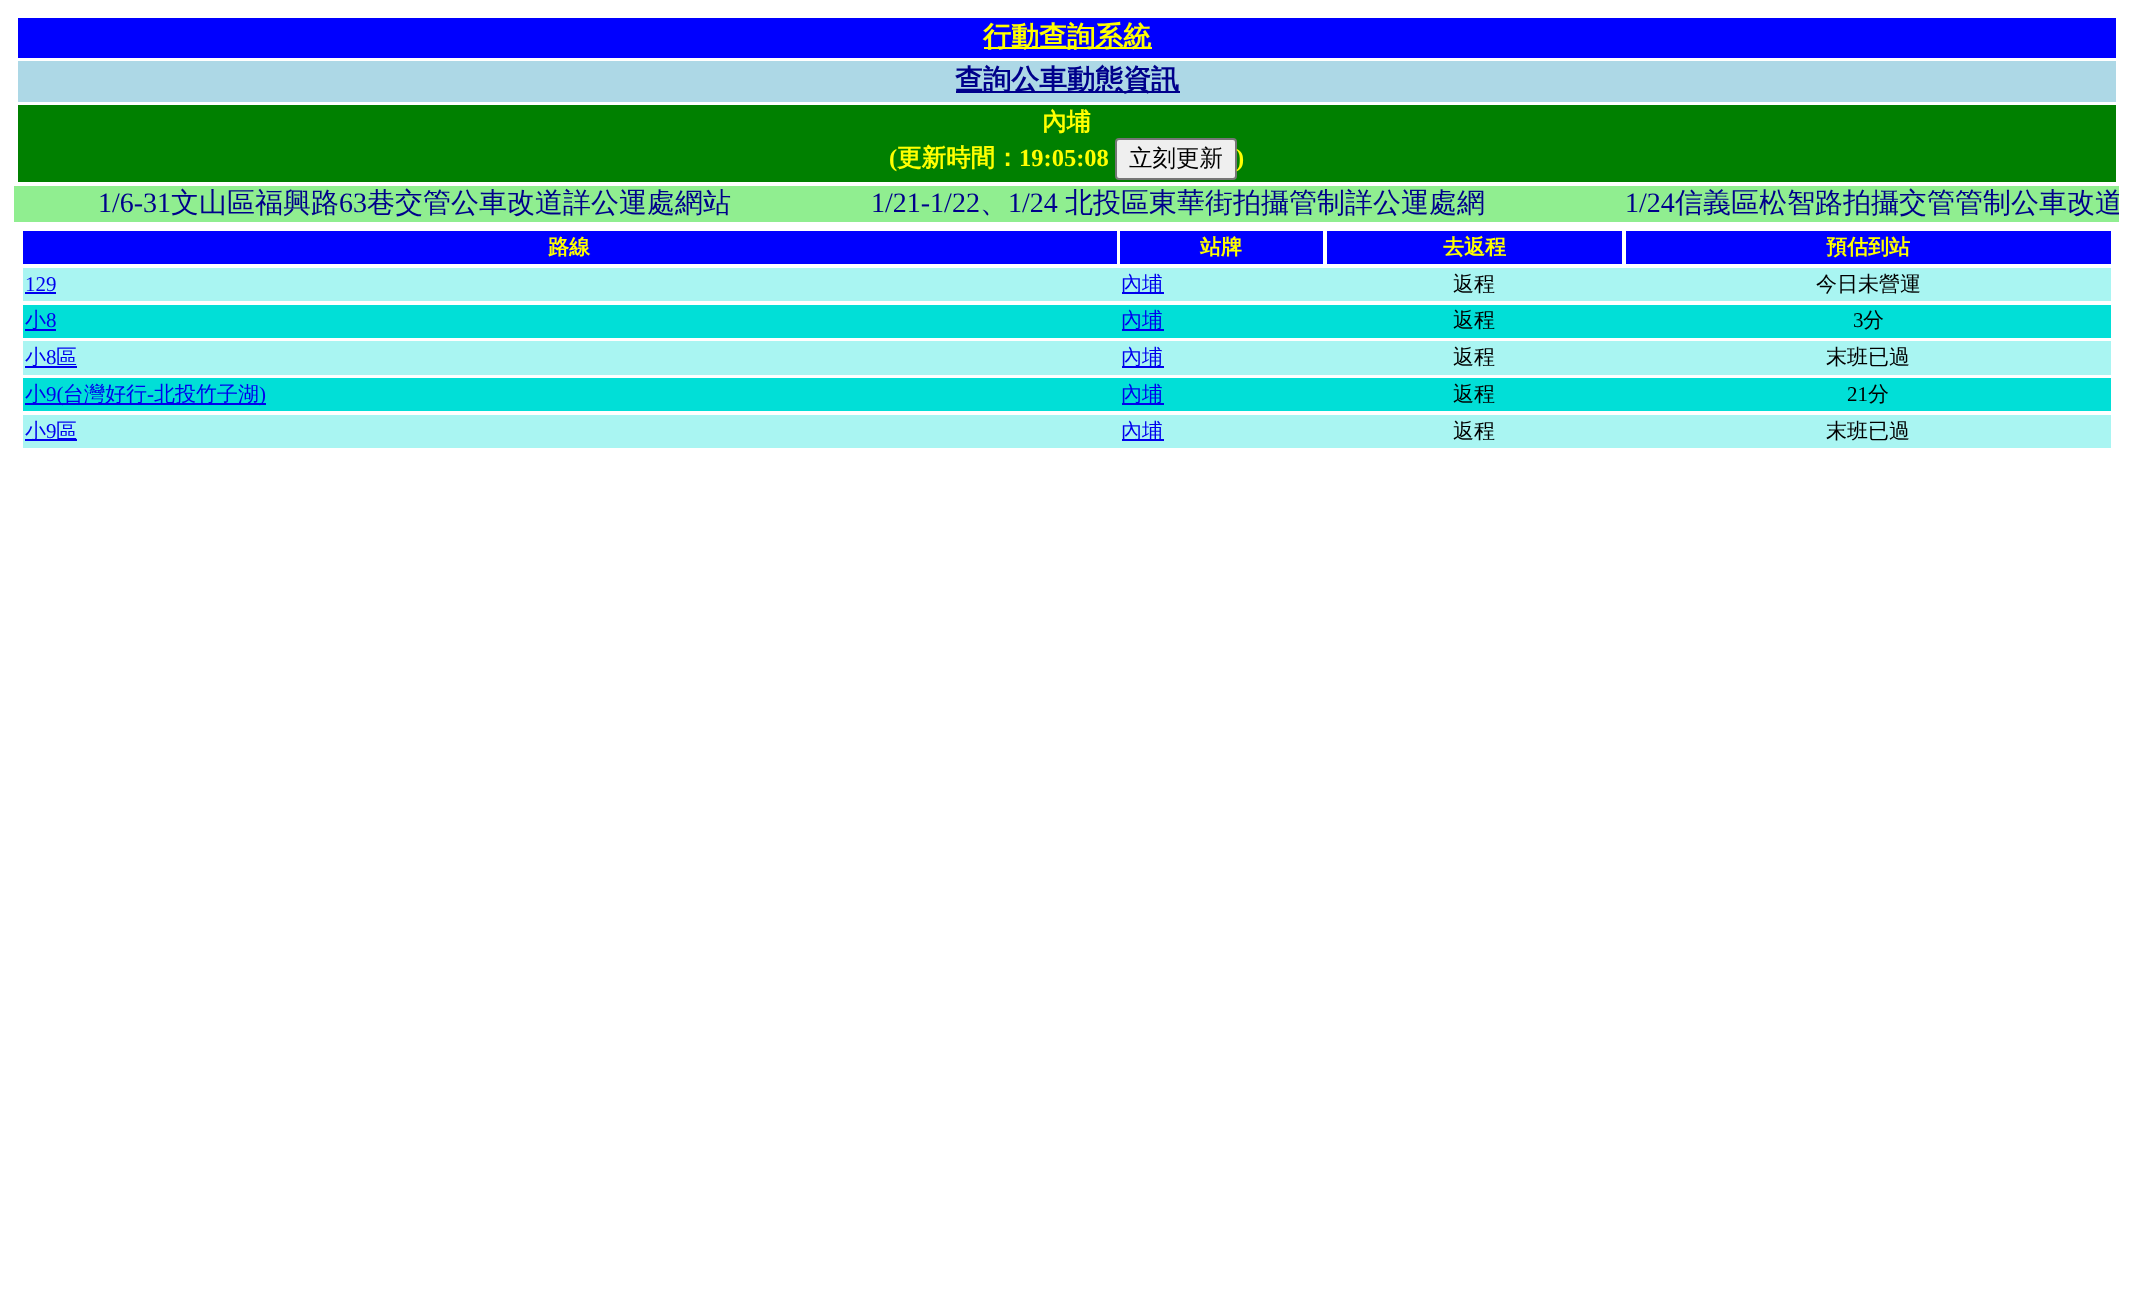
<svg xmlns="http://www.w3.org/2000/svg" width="2133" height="1298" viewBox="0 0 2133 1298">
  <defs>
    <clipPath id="clip1"><rect x="14" y="186" width="2105" height="36"/></clipPath>
  </defs>
  <rect width="100%" height="100%" fill="rgb(255,255,255)"/>
  <rect x="18" y="18" width="2098" height="40" fill="rgb(0,0,255)"/>
  <rect x="984" y="47" width="168" height="2" fill="rgb(255,255,0)"/>
  <text x="983" y="46" font-family="WenQuanYi Zen Hei" font-size="28" font-weight="bold" fill="rgb(255,255,0)">行動查詢系統</text>
  <rect x="18" y="61" width="2098" height="41" fill="rgb(173,216,230)"/>
  <rect x="956" y="91" width="224" height="2" fill="rgb(0,0,139)"/>
  <text x="955" y="89" font-family="WenQuanYi Zen Hei" font-size="28" font-weight="bold" fill="rgb(0,0,139)">查詢公車動態資訊</text>
  <rect x="18" y="105" width="2098" height="77" fill="rgb(0,128,0)"/>
  <text x="1042" y="130" font-family="WenQuanYi Zen Hei" font-size="24.5" font-weight="bold" fill="rgb(255,255,0)">內埔</text>
  <text x="889" y="166" font-family="Liberation Serif" font-size="24.5" font-weight="bold" fill="rgb(255,255,0)">(</text>
  <text x="897" y="166" font-family="WenQuanYi Zen Hei" font-size="24.5" font-weight="bold" fill="rgb(255,255,0)">更新時間：</text>
  <text x="1019" y="166" font-family="Liberation Serif" font-size="24.5" font-weight="bold" fill="rgb(255,255,0)">19:05:08</text>
  <rect x="1116" y="139" width="120" height="40" rx="3" fill="rgb(239,239,239)" stroke="rgb(118,118,118)" stroke-width="2"/>
  <text x="1129" y="166" font-family="WenQuanYi Zen Hei" font-size="23.5" font-weight="500" fill="rgb(0,0,0)">立刻更新</text>
  <text x="1236" y="166" font-family="Liberation Serif" font-size="24.5" font-weight="bold" fill="rgb(255,255,0)">)</text>
  <rect x="14" y="186" width="2105" height="36" fill="rgb(144,238,144)"/>
  <text x="98" y="212" font-family="Liberation Serif" font-size="28" fill="rgb(0,0,139)">1/6-31</text>
  <text x="171" y="212" font-family="WenQuanYi Zen Hei" font-size="28" font-weight="500" fill="rgb(0,0,139)">文山區福興路</text>
  <text x="339" y="212" font-family="Liberation Serif" font-size="28" fill="rgb(0,0,139)">63</text>
  <text x="367" y="212" font-family="WenQuanYi Zen Hei" font-size="28" font-weight="500" fill="rgb(0,0,139)">巷交管公車改道詳公運處網站</text>
  <text x="871" y="212" font-family="Liberation Serif" font-size="28" fill="rgb(0,0,139)">1/21-1/22</text>
  <text x="980" y="212" font-family="WenQuanYi Zen Hei" font-size="28" font-weight="500" fill="rgb(0,0,139)">、</text>
  <text x="1008" y="212" font-family="Liberation Serif" font-size="28" fill="rgb(0,0,139)">1/24</text>
  <text x="1065" y="212" font-family="WenQuanYi Zen Hei" font-size="28" font-weight="500" fill="rgb(0,0,139)">北投區東華街拍攝管制詳公運處網</text>
  <text x="1625" y="212" font-family="Liberation Serif" font-size="28" fill="rgb(0,0,139)">1/24</text>
  <g clip-path="url(#clip1)">
    <text x="1675" y="212" font-family="WenQuanYi Zen Hei" font-size="28" font-weight="500" fill="rgb(0,0,139)">信義區松智路拍攝交管管制公車改道</text>
  </g>
  <rect x="23" y="231" width="1094" height="33" fill="rgb(0,0,255)"/>
  <text x="548" y="254" font-family="WenQuanYi Zen Hei" font-size="21" font-weight="bold" fill="rgb(255,255,0)">路線</text>
  <rect x="1120" y="231" width="203" height="33" fill="rgb(0,0,255)"/>
  <text x="1200" y="254" font-family="WenQuanYi Zen Hei" font-size="21" font-weight="bold" fill="rgb(255,255,0)">站牌</text>
  <rect x="1327" y="231" width="295" height="33" fill="rgb(0,0,255)"/>
  <text x="1443" y="254" font-family="WenQuanYi Zen Hei" font-size="21" font-weight="bold" fill="rgb(255,255,0)">去返程</text>
  <rect x="1626" y="231" width="485" height="33" fill="rgb(0,0,255)"/>
  <text x="1826" y="254" font-family="WenQuanYi Zen Hei" font-size="21" font-weight="bold" fill="rgb(255,255,0)">預估到站</text>
  <rect x="23" y="268" width="2088" height="33" fill="rgb(169,245,242)"/>
  <text x="25" y="291" font-family="Liberation Serif" font-size="21" fill="rgb(0,0,238)">129</text>
  <rect x="25" y="292" width="31" height="2" fill="rgb(0,0,238)"/>
  <rect x="1122" y="292" width="42" height="2" fill="rgb(0,0,238)"/>
  <text x="1121" y="291" font-family="WenQuanYi Zen Hei" font-size="21" font-weight="500" fill="rgb(0,0,238)">內埔</text>
  <g font-family="WenQuanYi Zen Hei" font-size="21" font-weight="500" fill="rgb(0,0,0)">
    <text x="1453" y="291">返程</text>
    <text x="1816" y="291">今日未營運</text>
  </g>
  <rect x="23" y="305" width="2088" height="33" fill="rgb(1,223,215)"/>
  <rect x="25" y="329" width="31" height="2" fill="rgb(0,0,238)"/>
  <text x="25" y="327" font-family="WenQuanYi Zen Hei" font-size="21" font-weight="500" fill="rgb(0,0,238)">小</text>
  <text x="46" y="327" font-family="Liberation Serif" font-size="21" fill="rgb(0,0,238)">8</text>
  <rect x="1122" y="329" width="42" height="2" fill="rgb(0,0,238)"/>
  <text x="1121" y="327" font-family="WenQuanYi Zen Hei" font-size="21" font-weight="500" fill="rgb(0,0,238)">內埔</text>
  <text x="1453" y="327" font-family="WenQuanYi Zen Hei" font-size="21" font-weight="500" fill="rgb(0,0,0)">返程</text>
  <text x="1853" y="327" font-family="Liberation Serif" font-size="21" fill="rgb(0,0,0)">3</text>
  <text x="1863" y="327" font-family="WenQuanYi Zen Hei" font-size="21" font-weight="500" fill="rgb(0,0,0)">分</text>
  <rect x="23" y="341" width="2088" height="34" fill="rgb(169,245,242)"/>
  <rect x="25" y="366" width="52" height="2" fill="rgb(0,0,238)"/>
  <text x="25" y="364" font-family="WenQuanYi Zen Hei" font-size="21" font-weight="500" fill="rgb(0,0,238)">小</text>
  <text x="46" y="364" font-family="Liberation Serif" font-size="21" fill="rgb(0,0,238)">8</text>
  <text x="56" y="364" font-family="WenQuanYi Zen Hei" font-size="21" font-weight="500" fill="rgb(0,0,238)">區</text>
  <rect x="1122" y="366" width="42" height="2" fill="rgb(0,0,238)"/>
  <text x="1121" y="364" font-family="WenQuanYi Zen Hei" font-size="21" font-weight="500" fill="rgb(0,0,238)">內埔</text>
  <g font-family="WenQuanYi Zen Hei" font-size="21" font-weight="500" fill="rgb(0,0,0)">
    <text x="1453" y="364">返程</text>
    <text x="1826" y="364">末班已過</text>
  </g>
  <rect x="23" y="378" width="2088" height="33" fill="rgb(1,223,215)"/>
  <rect x="25" y="403" width="241" height="2" fill="rgb(0,0,238)"/>
  <text x="25" y="401" font-family="WenQuanYi Zen Hei" font-size="21" font-weight="500" fill="rgb(0,0,238)">小</text>
  <text x="46" y="401" font-family="Liberation Serif" font-size="21" fill="rgb(0,0,238)">9(</text>
  <text x="63" y="401" font-family="WenQuanYi Zen Hei" font-size="21" font-weight="500" fill="rgb(0,0,238)">台灣好行</text>
  <text x="147" y="401" font-family="Liberation Serif" font-size="21" fill="rgb(0,0,238)">-</text>
  <text x="154" y="401" font-family="WenQuanYi Zen Hei" font-size="21" font-weight="500" fill="rgb(0,0,238)">北投竹子湖</text>
  <text x="259" y="401" font-family="Liberation Serif" font-size="21" fill="rgb(0,0,238)">)</text>
  <rect x="1122" y="403" width="42" height="2" fill="rgb(0,0,238)"/>
  <text x="1121" y="401" font-family="WenQuanYi Zen Hei" font-size="21" font-weight="500" fill="rgb(0,0,238)">內埔</text>
  <text x="1453" y="401" font-family="WenQuanYi Zen Hei" font-size="21" font-weight="500" fill="rgb(0,0,0)">返程</text>
  <text x="1847" y="401" font-family="Liberation Serif" font-size="21" fill="rgb(0,0,0)">21</text>
  <text x="1868" y="401" font-family="WenQuanYi Zen Hei" font-size="21" font-weight="500" fill="rgb(0,0,0)">分</text>
  <rect x="23" y="415" width="2088" height="33" fill="rgb(169,245,242)"/>
  <rect x="25" y="439" width="52" height="2" fill="rgb(0,0,238)"/>
  <text x="25" y="438" font-family="WenQuanYi Zen Hei" font-size="21" font-weight="500" fill="rgb(0,0,238)">小</text>
  <text x="46" y="438" font-family="Liberation Serif" font-size="21" fill="rgb(0,0,238)">9</text>
  <text x="56" y="438" font-family="WenQuanYi Zen Hei" font-size="21" font-weight="500" fill="rgb(0,0,238)">區</text>
  <rect x="1122" y="439" width="42" height="2" fill="rgb(0,0,238)"/>
  <text x="1121" y="438" font-family="WenQuanYi Zen Hei" font-size="21" font-weight="500" fill="rgb(0,0,238)">內埔</text>
  <g font-family="WenQuanYi Zen Hei" font-size="21" font-weight="500" fill="rgb(0,0,0)">
    <text x="1453" y="438">返程</text>
    <text x="1826" y="438">末班已過</text>
  </g>
</svg>
